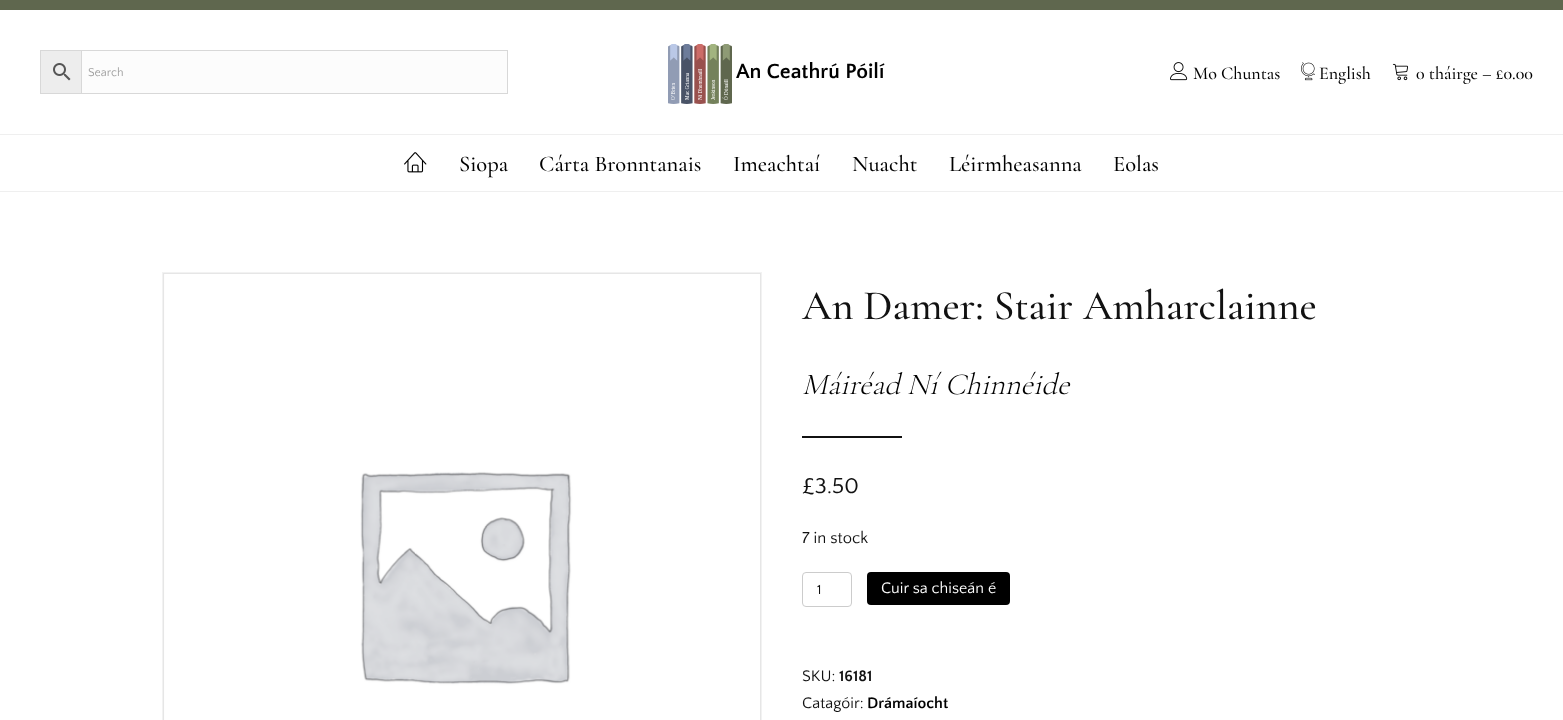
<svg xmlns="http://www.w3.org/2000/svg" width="1563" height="720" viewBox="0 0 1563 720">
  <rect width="100%" height="100%" fill="rgb(255,255,255)"/>
  <rect x="0" y="0" width="1563" height="10" fill="rgb(95,103,78)"/>
  <rect x="40.5" y="50.5" width="41" height="43" fill="rgb(237,237,237)" stroke="rgb(216,216,216)"/>
  <image x="53" y="63" width="18" height="18" href="pic1.png"/>
  <rect x="81.5" y="50.5" width="426" height="43" fill="rgb(252,252,252)" stroke="rgb(216,216,216)"/>
  <text x="88" y="76" font-family="Quattrocento Sans" font-size="12" fill="rgb(158,158,158)">Search</text>
  <image x="668" y="44" width="64" height="60" href="pic2.png"/>
  <text x="736" y="78" font-family="Quattrocento Sans" font-size="21.5" font-weight="bold" fill="rgb(0,0,0)">An Ceathrú Póilí</text>
  <image x="1170" y="62" width="18" height="19" href="pic3.png"/>
  <text x="1193" y="79" font-family="Cormorant Garamond" font-size="18" font-weight="500" fill="rgb(0,0,0)">Mo Chuntas</text>
  <image x="1301" y="62" width="14" height="19" href="pic4.png"/>
  <text x="1319" y="79" font-family="Cormorant Garamond" font-size="18" font-weight="500" fill="rgb(0,0,0)">English</text>
  <image x="1392" y="63" width="16" height="18" href="pic5.png"/>
  <text x="1416" y="79" font-family="Cormorant Garamond" font-size="18" font-weight="500" fill="rgb(0,0,0)">0 tháirge – £0.00</text>
  <rect x="0" y="134" width="1563" height="1" fill="rgb(239,239,239)"/>
  <rect x="0" y="191" width="1563" height="1" fill="rgb(239,239,239)"/>
  <image x="404" y="152" width="23" height="21" href="pic6.png"/>
  <g font-family="Cormorant Garamond" font-size="22.5" font-weight="500" fill="rgb(0,0,0)">
    <text x="459" y="171">Siopa</text>
    <text x="539" y="171">Cárta Bronntanais</text>
    <text x="733" y="171">Imeachtaí</text>
    <text x="852" y="171">Nuacht</text>
    <text x="949" y="171">Léirmheasanna</text>
    <text x="1113" y="171">Eolas</text>
  </g>
  <image x="164" y="274" width="1" height="446" href="pic7.png"/>
  <rect x="162.5" y="272.5" width="599" height="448" fill="none" stroke="rgb(242,242,242)"/>
  <rect x="163.5" y="273.5" width="597" height="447" fill="none" stroke="rgb(230,230,230)"/>
  <image x="164" y="274" width="596" height="446" href="pic8.png"/>
  <text x="802" y="319" font-family="Cormorant Garamond" font-size="42" font-weight="500" fill="rgb(17,17,17)">An Damer: Stair Amharclainne</text>
  <text x="802" y="394" font-family="Cormorant Garamond" font-size="30.5" font-weight="300" font-style="italic" fill="rgb(0,0,0)">Máiréad Ní Chinnéide</text>
  <rect x="802" y="436" width="100" height="2" fill="rgb(17,17,17)"/>
  <text x="802" y="493" font-family="Quattrocento Sans" font-size="22.5" fill="rgb(17,17,17)">£3.50</text>
  <text x="802" y="543" font-family="Quattrocento Sans" font-size="16.5" fill="rgb(17,17,17)">7 in stock</text>
  <rect x="802.5" y="572.5" width="49" height="34" rx="3.5" fill="none" stroke="rgb(204,204,204)"/>
  <text x="817" y="594" font-family="Quattrocento Sans" font-size="14" fill="rgb(17,17,17)">1</text>
  <rect x="867" y="572" width="143" height="33" rx="4" fill="rgb(0,0,0)"/>
  <text x="881" y="593" font-family="Quattrocento Sans" font-size="16" fill="rgb(255,255,255)">Cuir sa chiseán é</text>
  <text x="802" y="681" font-family="Quattrocento Sans" font-size="16" fill="rgb(17,17,17)">SKU:</text>
  <text x="839" y="681" font-family="Quattrocento Sans" font-size="16" font-weight="bold" fill="rgb(17,17,17)">16181</text>
  <text x="802" y="708" font-family="Quattrocento Sans" font-size="16" fill="rgb(17,17,17)">Catagóir:</text>
  <text x="867" y="708" font-family="Quattrocento Sans" font-size="16" font-weight="bold" fill="rgb(0,0,0)">Drámaíocht</text>
</svg>
